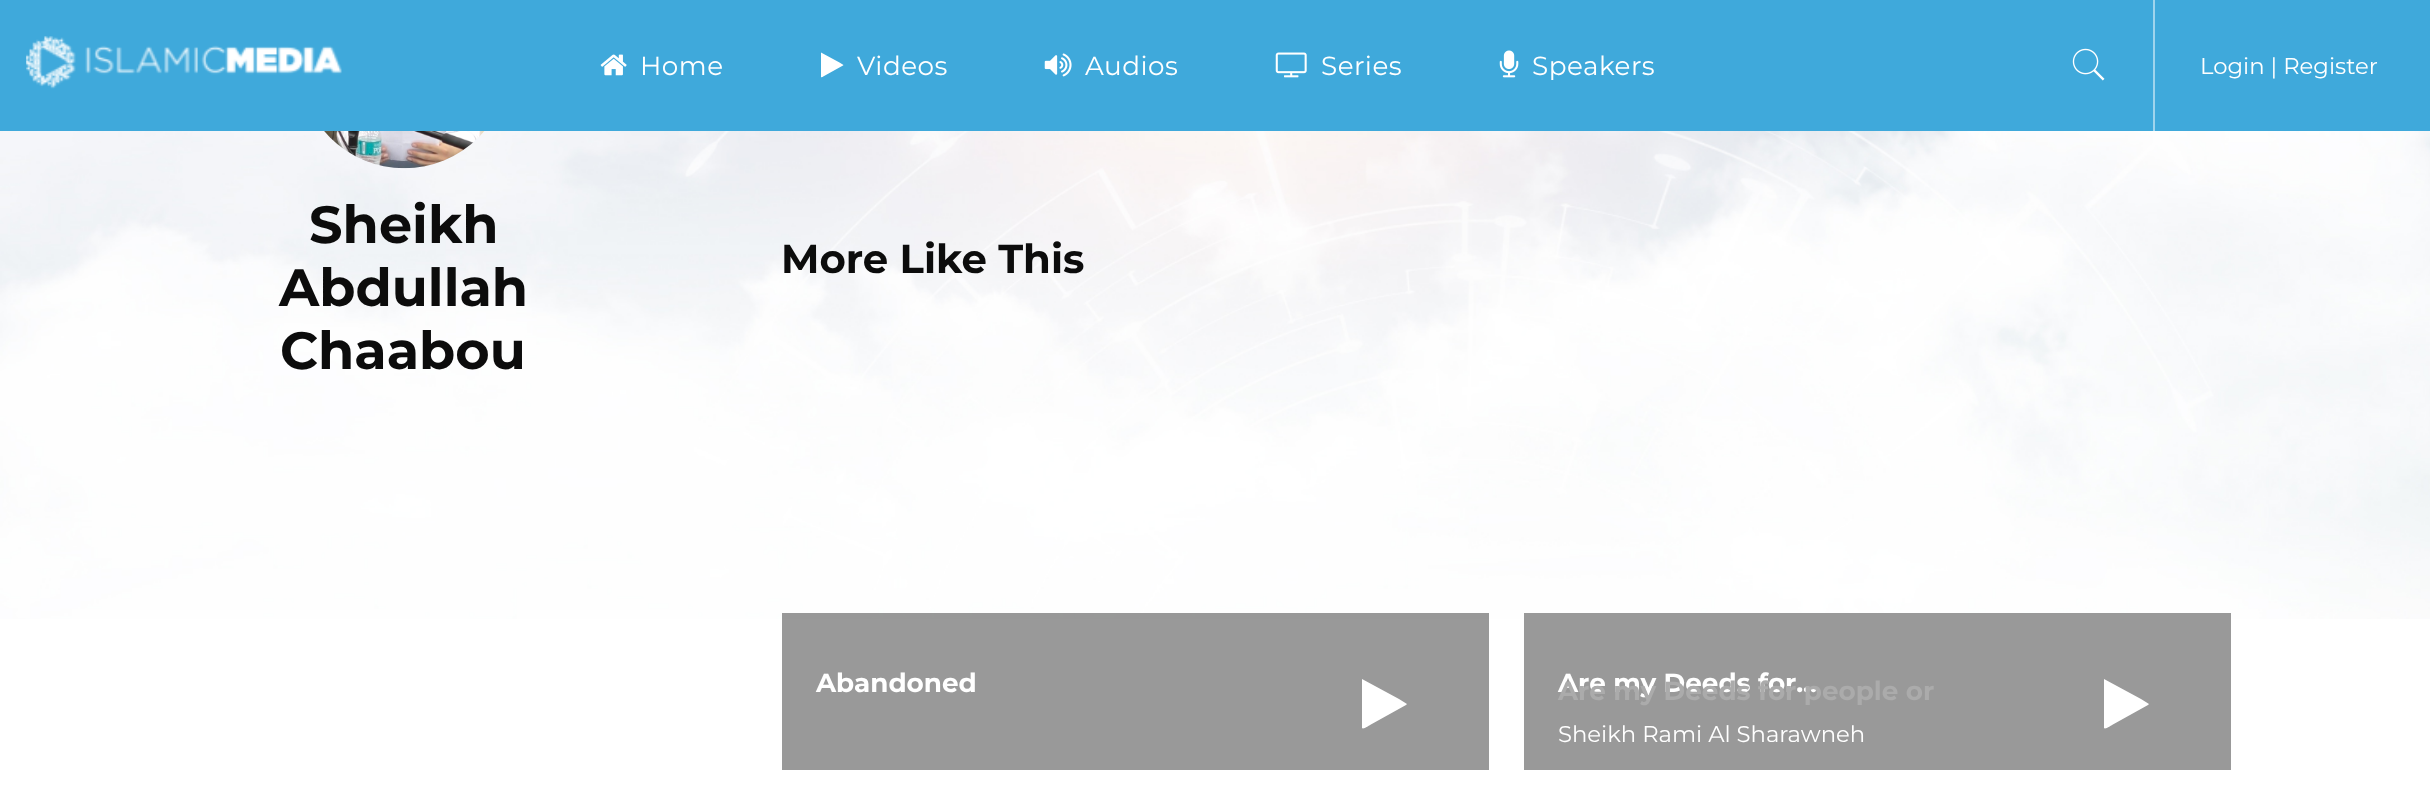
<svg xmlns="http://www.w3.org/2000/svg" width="2430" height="797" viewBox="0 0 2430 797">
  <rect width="100%" height="100%" fill="rgb(255,255,255)"/>
  <image x="0" y="131" width="2430" height="488" href="pic1.png"/>
  <rect x="0" y="0" width="2430" height="131" fill="rgb(63,169,219)"/>
  <image x="26" y="36" width="316" height="53" href="pic2.png"/>
  <image x="600" y="54" width="27" height="22" href="pic3.png"/>
  <text x="640" y="75" font-family="Montserrat" font-size="26.25" letter-spacing="0.5" fill="rgb(255,255,255)">Home</text>
  <path d="M843 65.5L825 75.5C825 75.5 821.5 78 821 77V53V52.5L839.5 62.5L843.5 65Z" fill="rgb(255,255,255)"/>
  <text x="857" y="75" font-family="Montserrat" font-size="26.25" letter-spacing="0.5" fill="rgb(255,255,255)">Videos</text>
  <image x="1044" y="53" width="28" height="24" href="pic4.png"/>
  <text x="1085" y="75" font-family="Montserrat" font-size="26.25" letter-spacing="0.5" fill="rgb(255,255,255)">Audios</text>
  <image x="1275" y="52" width="32" height="26" href="pic5.png"/>
  <text x="1321" y="75" font-family="Montserrat" font-size="26.25" letter-spacing="0.5" fill="rgb(255,255,255)">Series</text>
  <image x="1499" y="50" width="20" height="28" href="pic6.png"/>
  <text x="1532" y="75" font-family="Montserrat" font-size="26.25" letter-spacing="0.5" fill="rgb(255,255,255)">Speakers</text>
  <rect x="2153" y="0" width="2" height="131" fill="rgb(159,212,237)"/>
  <image x="2072" y="48" width="33" height="33" href="pic7.png"/>
  <text x="2200" y="74" font-family="Montserrat" font-size="22.75" fill="rgb(255,255,255)">Login | Register</text>
  <image x="324" y="131" width="161" height="38" href="pic8.png"/>
  <g font-family="Montserrat" font-size="52.5" font-weight="bold" fill="rgb(12,12,12)">
    <text x="309" y="243">Sheikh</text>
    <text x="279" y="306">Abdullah</text>
    <text x="280" y="369">Chaabou</text>
  </g>
  <text x="781" y="273" font-family="Montserrat" font-size="40.25" font-weight="bold" fill="rgb(12,12,12)">More Like This</text>
  <rect x="782" y="613" width="707" height="157" fill="rgba(0,0,0,0.4)"/>
  <text x="816" y="692" font-family="Montserrat" font-size="26.25" font-weight="bold" fill="rgb(255,255,255)">Abandoned</text>
  <path d="M1406 705L1370 725C1370 725 1363 730 1362 728V680V679L1399 699L1407 704Z" fill="rgb(255,255,255)"/>
  <rect x="1524" y="613" width="707" height="157" fill="rgb(153,153,153)"/>
  <text x="1558" y="692" font-family="Montserrat" font-size="26.25" font-weight="bold" fill="rgb(255,255,255)">Are my Deeds for...</text>
  <path d="M2148 705L2112 725C2112 725 2105 730 2104 728V680V679L2141 699L2149 704Z" fill="rgb(255,255,255)"/>
  <text x="1558" y="700" font-family="Montserrat" font-size="26.25" font-weight="bold" fill="rgb(171,171,171)">Are my Deeds for people or</text>
  <text x="1558" y="742" font-family="Montserrat" font-size="22.75" fill="rgb(255,255,255)">Sheikh Rami Al Sharawneh</text>
</svg>
